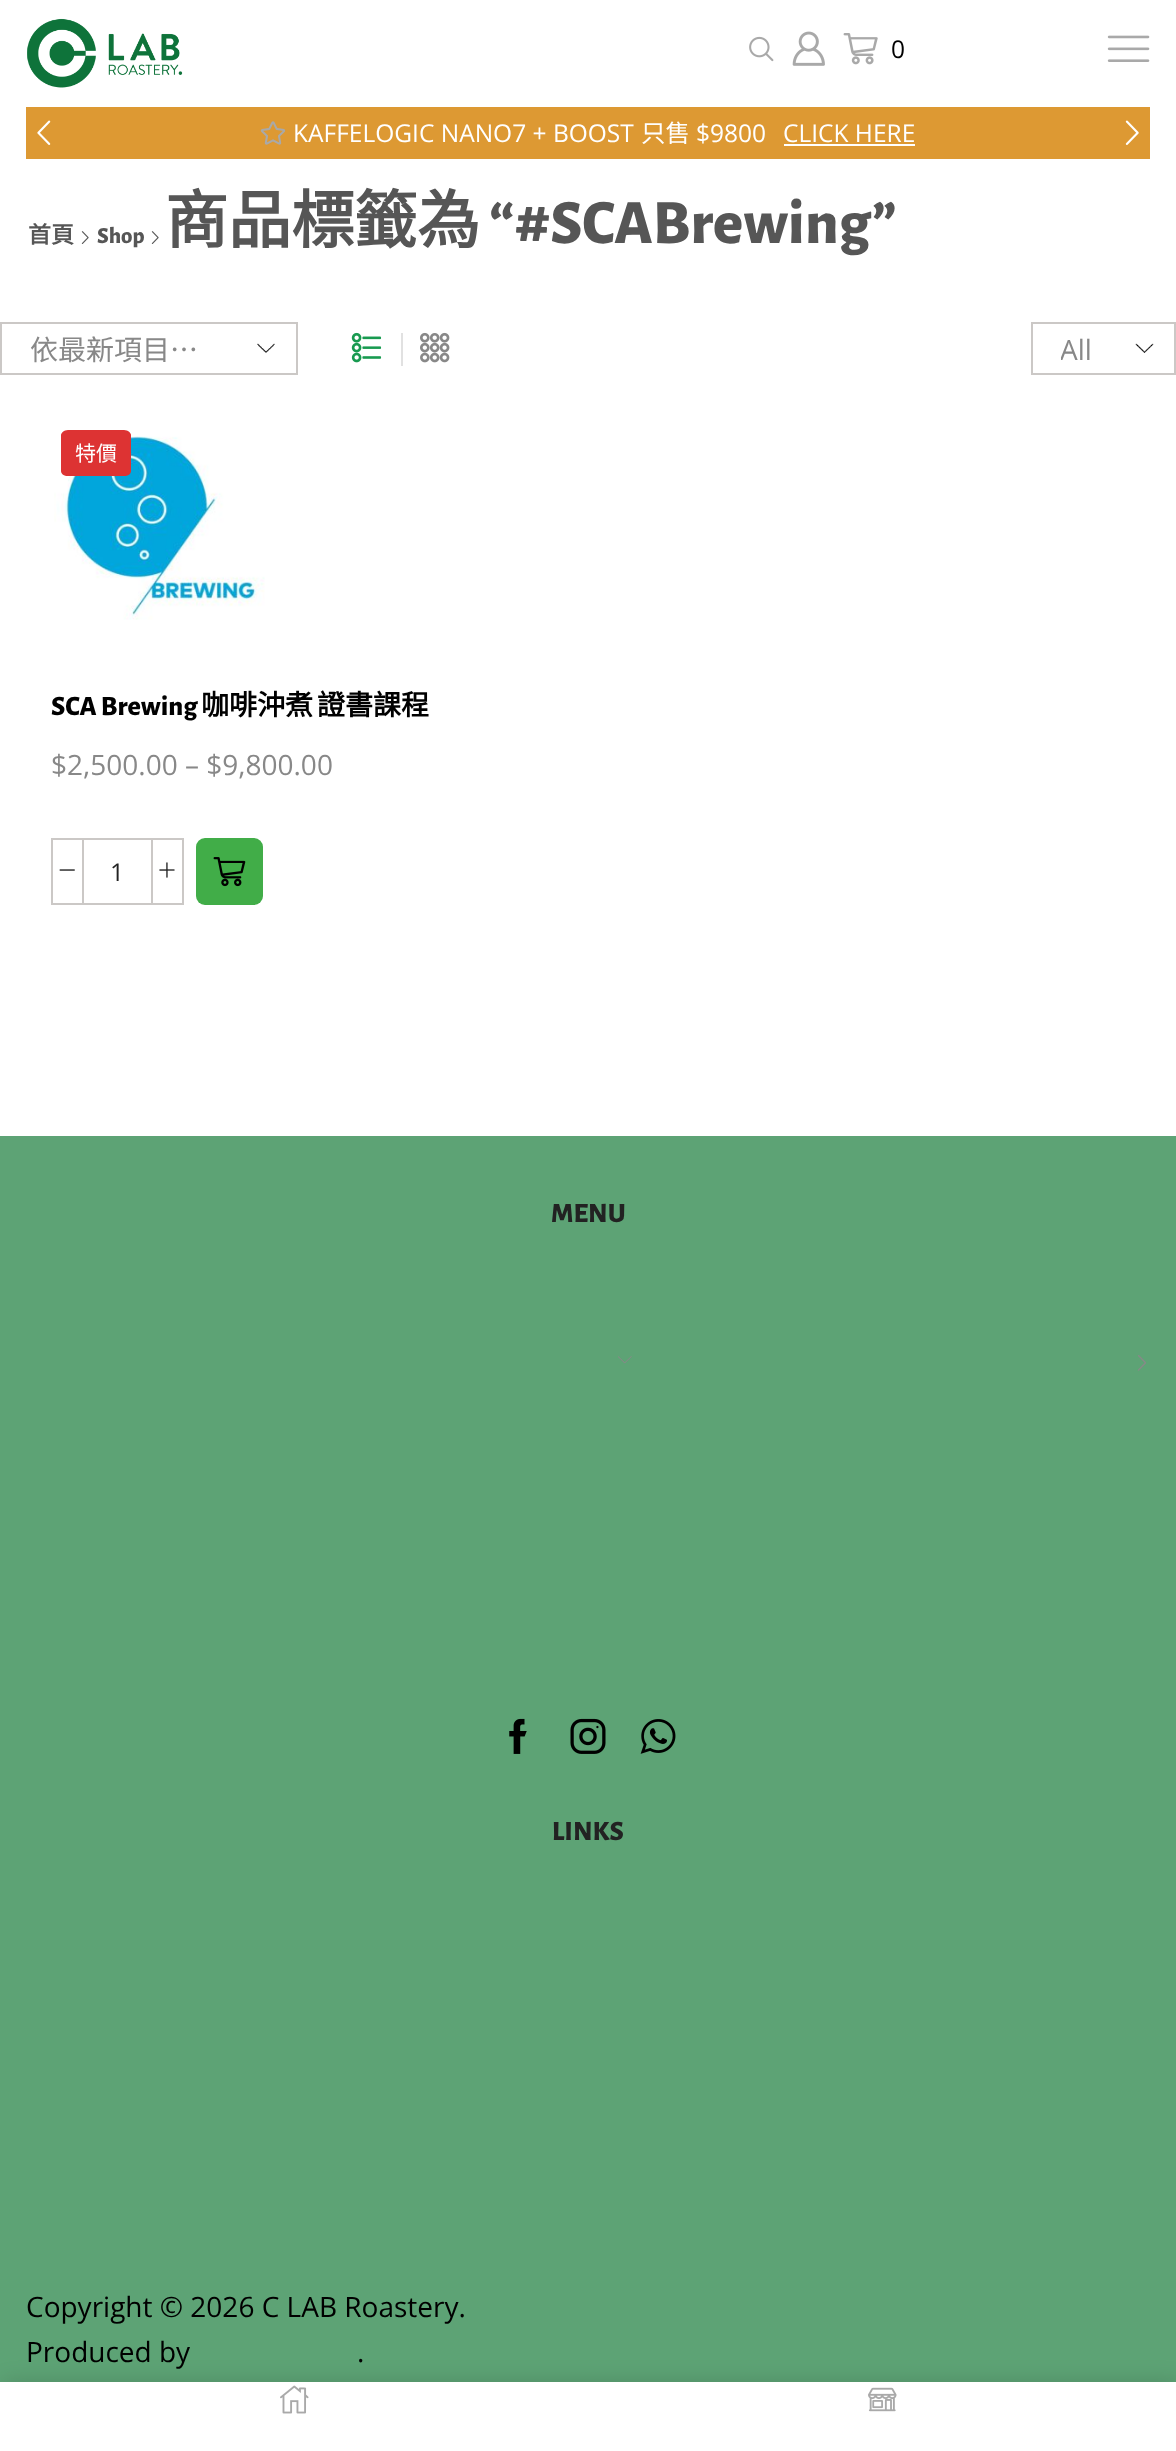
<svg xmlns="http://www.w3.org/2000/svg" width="1176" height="2451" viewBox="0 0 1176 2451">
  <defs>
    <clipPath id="clip1"><rect x="1061" y="324" width="33" height="49"/></clipPath>
  </defs>
  <rect width="100%" height="100%" fill="rgb(255,255,255)"/>
  <image x="27" y="18" width="156" height="70" href="pic1.png"/>
  <image x="749" y="36" width="25" height="26" href="pic2.png"/>
  <image x="792" y="31" width="33" height="35" href="pic3.png"/>
  <image x="843" y="33" width="35" height="32" href="pic4.png"/>
  <text x="891" y="58" font-family="Open Sans" font-size="24.5" fill="rgb(0,0,0)">0</text>
  <image x="1107" y="35" width="43" height="27" href="pic5.png"/>
  <rect x="26" y="107" width="1124" height="52" fill="rgb(221,153,51)"/>
  <image x="37" y="120" width="14" height="25" href="pic6.png"/>
  <image x="260" y="121" width="26" height="24" href="pic7.png"/>
  <text x="293" y="142" font-family="Open Sans" font-size="24.5" fill="rgb(255,255,255)">KAFFELOGIC NANO7 + BOOST</text>
  <text x="641" y="142" font-family="Noto Sans CJK HK" font-size="24.5" fill="rgb(255,255,255)">只售</text>
  <g font-family="Open Sans" font-size="24.5" fill="rgb(255,255,255)">
    <text x="696" y="142">$9800</text>
    <text x="783" y="142">CLICK HERE</text>
  </g>
  <rect x="784" y="144" width="131" height="2" fill="rgb(255,255,255)"/>
  <image x="1125" y="120" width="14" height="25" href="pic8.png"/>
  <text x="28" y="243" font-family="Noto Sans CJK HK" font-size="23" font-weight="bold" fill="rgb(86,86,86)">首頁</text>
  <image x="81" y="231" width="8" height="13" href="pic9.png"/>
  <text x="97" y="243" font-family="Alegreya Sans" font-size="23" font-weight="800" fill="rgb(86,86,86)">Shop</text>
  <image x="151" y="231" width="8" height="13" href="pic9.png"/>
  <text x="165" y="243" font-family="Noto Sans CJK HK" font-size="63" font-weight="bold" fill="rgb(86,86,86)">商品標籤為</text>
  <text x="489" y="243" font-family="Alegreya Sans" font-size="63" font-weight="800" fill="rgb(86,86,86)">“#SCABrewing”</text>
  <image x="257" y="343" width="18" height="10" href="pic10.png"/>
  <rect x="1" y="323" width="296" height="51" fill="none" stroke="rgb(203,200,198)" stroke-width="2"/>
  <text x="30" y="360" font-family="Noto Sans CJK HK" font-size="28" fill="rgb(136,136,136)">依最新項目…</text>
  <image x="351" y="332" width="31" height="31" href="pic11.png"/>
  <rect x="401" y="333" width="2" height="33" fill="rgb(225,225,225)"/>
  <image x="420" y="332" width="30" height="31" href="pic12.png"/>
  <image x="1135" y="343" width="19" height="10" href="pic13.png"/>
  <rect x="1032" y="323" width="143" height="51" fill="none" stroke="rgb(203,200,198)" stroke-width="2"/>
  <g clip-path="url(#clip1)">
    <text x="1060" y="360" font-family="Open Sans" font-size="28" fill="rgb(136,136,136)">All</text>
  </g>
  <image x="54" y="436" width="211" height="184" href="pic14.png"/>
  <path d="M68 430H124C128 430 131 433 131 435V471C131 474 128 476 124 476H68C64 476 61 474 61 471V435C61 433 64 430 68 430Z" fill="rgb(221,51,51)"/>
  <text x="75" y="461" font-family="Noto Sans CJK HK" font-size="21" fill="rgb(255,255,255)">特價</text>
  <text x="51" y="715" font-family="Alegreya Sans" font-size="28" font-weight="800" fill="rgb(0,0,0)">SCA Brewing</text>
  <g font-family="Noto Sans CJK HK" font-size="28" font-weight="bold" fill="rgb(0,0,0)">
    <text x="201" y="715">咖啡沖煮</text>
    <text x="317" y="715">證書課程</text>
  </g>
  <text x="51" y="775" font-family="Open Sans" font-size="28" fill="rgb(136,136,136)">$2,500.00 – $9,800.00</text>
  <rect x="52" y="839" width="31" height="65" fill="none" stroke="rgb(203,200,198)" stroke-width="2"/>
  <image x="59" y="869" width="16" height="2" href="pic15.png"/>
  <rect x="84" y="838" width="67" height="2" fill="rgb(203,200,198)"/>
  <rect x="84" y="903" width="67" height="2" fill="rgb(203,200,198)"/>
  <text x="110" y="881" font-family="Open Sans" font-size="24.5" fill="rgb(34,34,34)">1</text>
  <rect x="152" y="839" width="31" height="65" fill="none" stroke="rgb(203,200,198)" stroke-width="2"/>
  <image x="159" y="862" width="16" height="16" href="pic16.png"/>
  <rect x="196" y="838" width="67" height="67" rx="9" fill="rgb(65,173,72)"/>
  <image x="213" y="857" width="33" height="30" href="pic17.png"/>
  <rect x="0" y="1136" width="1176" height="1246" fill="rgb(93,163,117)"/>
  <text x="551" y="1222" font-family="Alegreya Sans" font-size="28" font-weight="800" fill="rgb(34,34,34)">MENU</text>
  <image x="618" y="1356" width="14" height="8" href="pic18.png"/>
  <image x="1137" y="1355" width="9" height="16" href="pic19.png"/>
  <image x="509" y="1718" width="18" height="36" href="pic20.png"/>
  <image x="570" y="1718" width="36" height="36" href="pic21.png"/>
  <image x="640" y="1719" width="36" height="35" href="pic22.png"/>
  <text x="552" y="1840" font-family="Alegreya Sans" font-size="28" font-weight="800" fill="rgb(34,34,34)">LINKS</text>
  <g font-family="Open Sans" font-size="28" fill="rgb(0,0,0)">
    <text>
      <tspan x="26" y="2317">Copyright © 2026 C LAB Roastery.</tspan>
      <tspan x="26" y="2362">Produced by</tspan>
    </text>
    <text x="357" y="2362">.</text>
  </g>
  <rect x="4" y="2382" width="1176" height="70" fill="rgba(0,0,0,0.15)" filter="blur(10.5px)"/>
  <rect x="0" y="2382" width="1176" height="69" fill="rgb(255,255,255)"/>
  <image x="280" y="2385" width="29" height="29" href="pic23.png"/>
  <image x="868" y="2387" width="29" height="25" href="pic24.png"/>
</svg>
